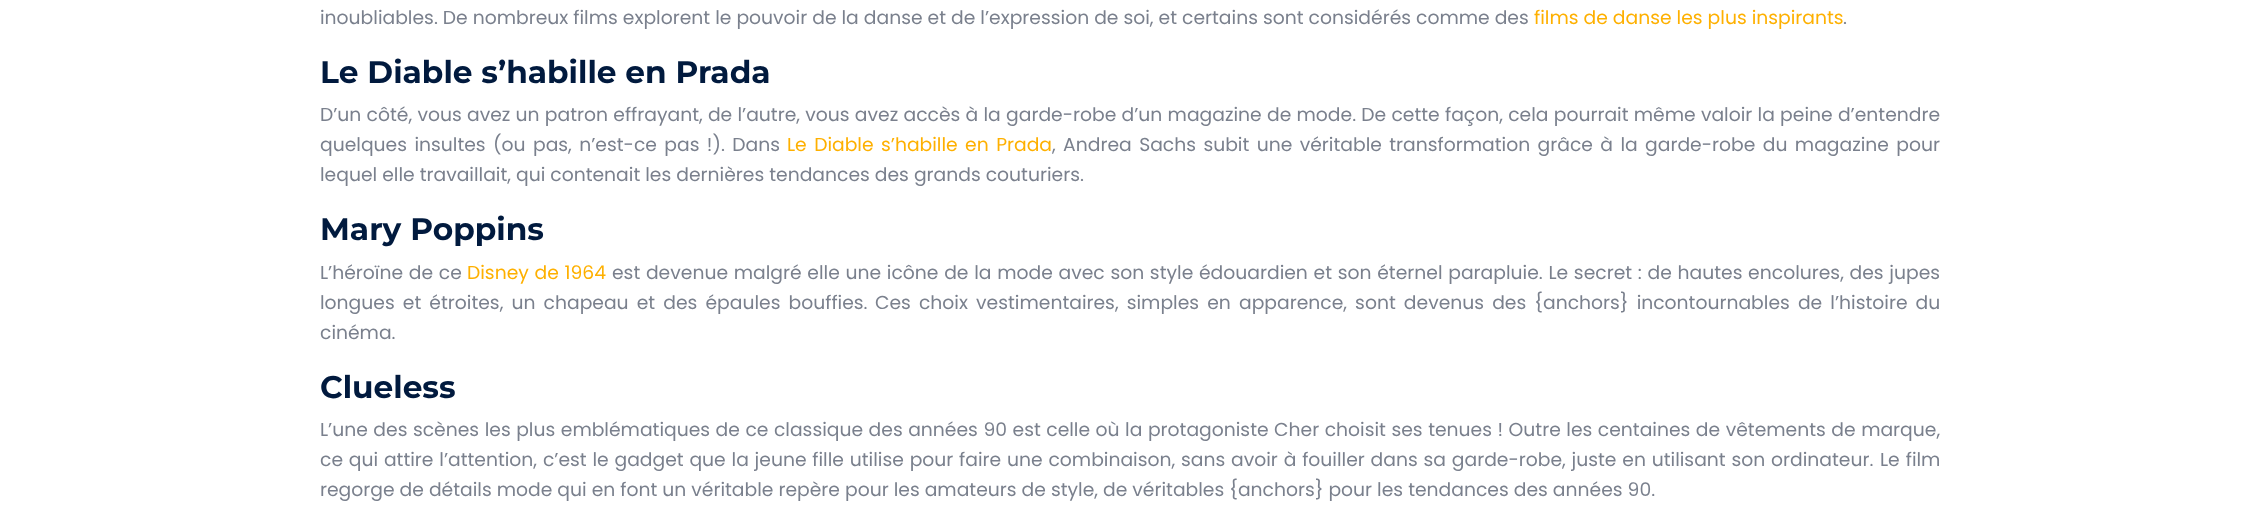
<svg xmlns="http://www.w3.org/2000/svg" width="2259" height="521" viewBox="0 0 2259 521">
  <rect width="100%" height="100%" fill="rgb(255,255,255)"/>
  <text x="320" y="24" font-family="Poppins" font-size="18.75" fill="rgb(122,128,141)">inoubliables. De nombreux films explorent le pouvoir de la danse et de l’expression de soi, et certains sont considérés comme des</text>
  <text x="1534" y="24" font-family="Poppins" font-size="18.75" fill="rgb(254,176,0)">films de danse les plus inspirants</text>
  <text x="1843" y="24" font-family="Poppins" font-size="18.75" fill="rgb(122,128,141)">.</text>
  <text x="320" y="83" font-family="Montserrat" font-size="31.25" font-weight="bold" fill="rgb(1,26,62)">Le Diable s’habille en Prada</text>
  <g font-family="Poppins" font-size="18.75" fill="rgb(122,128,141)">
    <text>
      <tspan x="320" y="121" word-spacing="0.25">D’un côté, vous avez un patron effrayant, de l’autre, vous avez accès à la garde-robe d’un magazine de mode. De cette façon, cela pourrait même valoir la peine d’entendre</tspan>
      <tspan x="320" y="151" word-spacing="2.4">quelques insultes (ou pas, n’est-ce pas !). Dans</tspan>
    </text>
  </g>
  <text x="787" y="151" word-spacing="2.4" font-family="Poppins" font-size="18.75" fill="rgb(254,176,0)">Le Diable s’habille en Prada</text>
  <g font-family="Poppins" font-size="18.75" fill="rgb(122,128,141)">
    <text x="1052" y="151" word-spacing="2.4">, Andrea Sachs subit une véritable transformation grâce à la garde-robe du magazine pour</text>
    <text x="320" y="181">lequel elle travaillait, qui contenait les dernières tendances des grands couturiers.</text>
  </g>
  <text x="320" y="240" font-family="Montserrat" font-size="31.25" font-weight="bold" fill="rgb(1,26,62)">Mary Poppins</text>
  <text x="320" y="279" word-spacing="0.7" font-family="Poppins" font-size="18.75" fill="rgb(122,128,141)">L’héroïne de ce</text>
  <text x="467" y="279" word-spacing="0.7" font-family="Poppins" font-size="18.75" fill="rgb(254,176,0)">Disney de 1964</text>
  <g font-family="Poppins" font-size="18.75" fill="rgb(122,128,141)">
    <text x="612" y="279" word-spacing="0.7">est devenue malgré elle une icône de la mode avec son style édouardien et son éternel parapluie. Le secret : de hautes encolures, des jupes</text>
    <text x="320" y="309" word-spacing="3.1">longues et étroites, un chapeau et des épaules bouffies.</text>
    <text x="875" y="309" word-spacing="3.1">Ces choix vestimentaires, simples en apparence, sont devenus des {anchors} incontournables de l’histoire du</text>
    <text x="320" y="339">cinéma.</text>
  </g>
  <text x="320" y="398" font-family="Montserrat" font-size="31.25" font-weight="bold" fill="rgb(1,26,62)">Clueless</text>
  <g font-family="Poppins" font-size="18.75" fill="rgb(122,128,141)">
    <text>
      <tspan x="320" y="436" word-spacing="0.5">L’une des scènes les plus emblématiques de ce classique des années 90 est celle où la protagoniste Cher choisit ses tenues ! Outre les centaines de vêtements de marque,</tspan>
      <tspan x="320" y="466" word-spacing="0.8">ce qui attire l’attention, c’est le gadget que la jeune fille utilise pour faire une combinaison, sans avoir à fouiller dans sa garde-robe, juste en utilisant son ordinateur.</tspan>
    </text>
    <text x="1880" y="466" word-spacing="1">Le film</text>
    <text x="320" y="496">regorge de détails mode qui en font un véritable repère pour les amateurs de style, de véritables {anchors} pour les tendances des années 90.</text>
  </g>
</svg>
